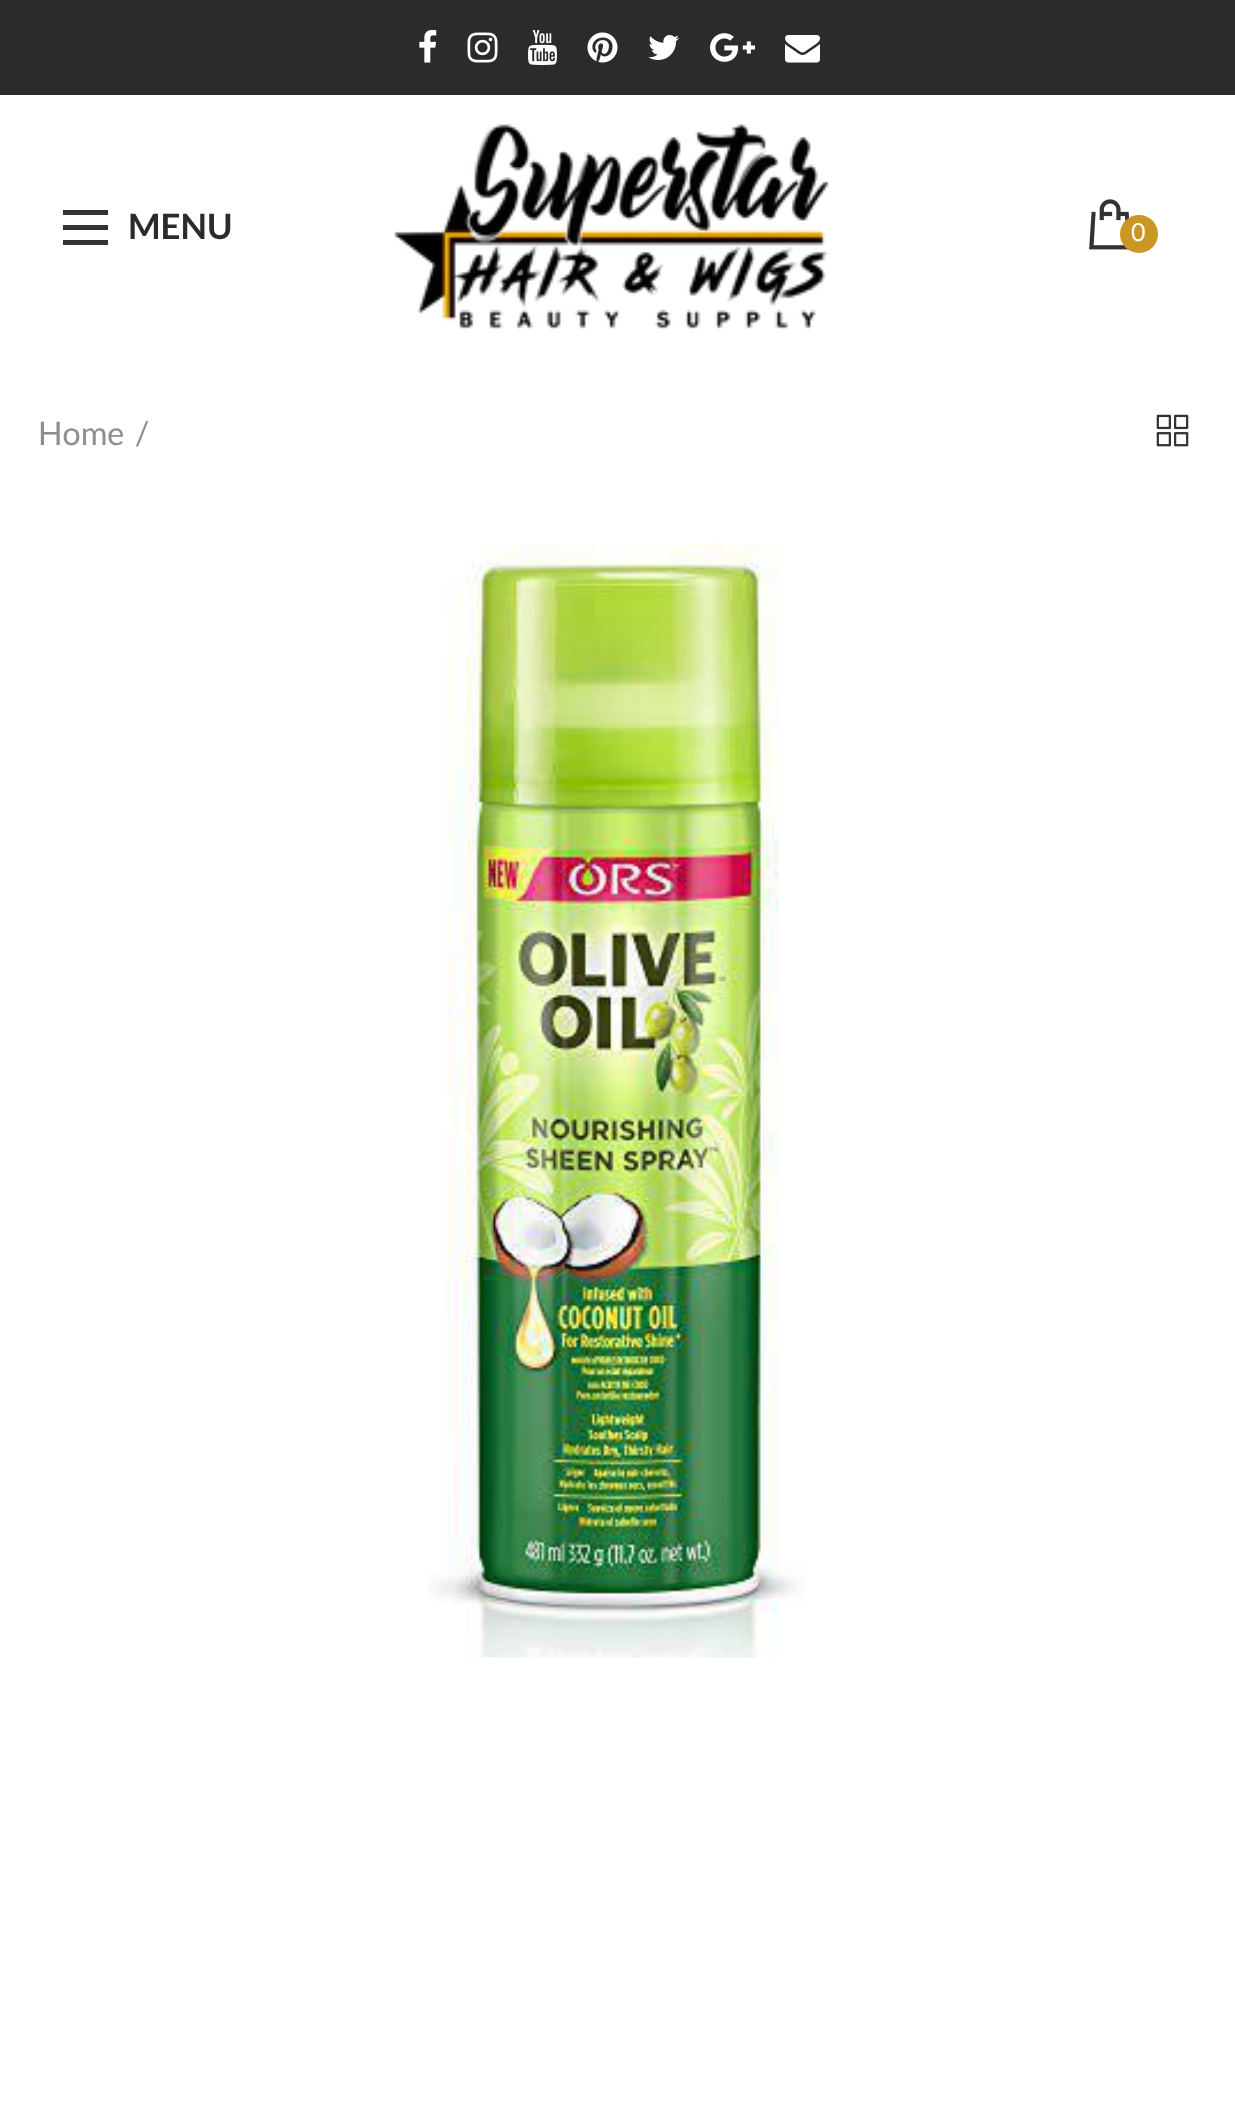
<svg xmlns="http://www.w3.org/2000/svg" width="1235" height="2127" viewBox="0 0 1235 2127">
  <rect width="100%" height="100%" fill="rgb(255,255,255)"/>
  <rect x="0" y="0" width="1235" height="95" fill="rgb(45,42,42)"/>
  <image x="419" y="30" width="18" height="33" href="pic1.png"/>
  <image x="467" y="32" width="31" height="31" href="pic2.png"/>
  <image x="528" y="30" width="29" height="35" href="pic3.png"/>
  <image x="587" y="32" width="31" height="31" href="pic4.png"/>
  <image x="648" y="35" width="31" height="25" href="pic5.png"/>
  <image x="710" y="33" width="45" height="29" href="pic6.png"/>
  <image x="785" y="35" width="35" height="28" href="pic7.png"/>
  <rect x="63" y="225" width="45" height="5" fill="rgb(51,51,51)"/>
  <rect x="63" y="210" width="45" height="5" fill="rgb(51,51,51)"/>
  <rect x="63" y="240" width="45" height="5" fill="rgb(51,51,51)"/>
  <text x="128" y="239" font-family="Lato" font-size="35" font-weight="bold" fill="rgb(45,42,42)">MENU</text>
  <image x="393" y="124" width="436" height="205" href="pic8.png"/>
  <image x="1089" y="199" width="40" height="51" href="pic9.png"/>
  <circle cx="1139" cy="234" r="19" fill="rgb(202,150,36)"/>
  <text x="1131" y="241" font-family="Lato" font-size="25" fill="rgb(255,255,255)">0</text>
  <g font-family="Lato" font-size="32.5" fill="rgb(142,142,142)">
    <text x="38" y="445">Home</text>
    <text x="136" y="445">/</text>
  </g>
  <image x="1156" y="414" width="33" height="33" href="pic10.png"/>
  <image x="428" y="543" width="377" height="1115" href="pic11.png"/>
</svg>
